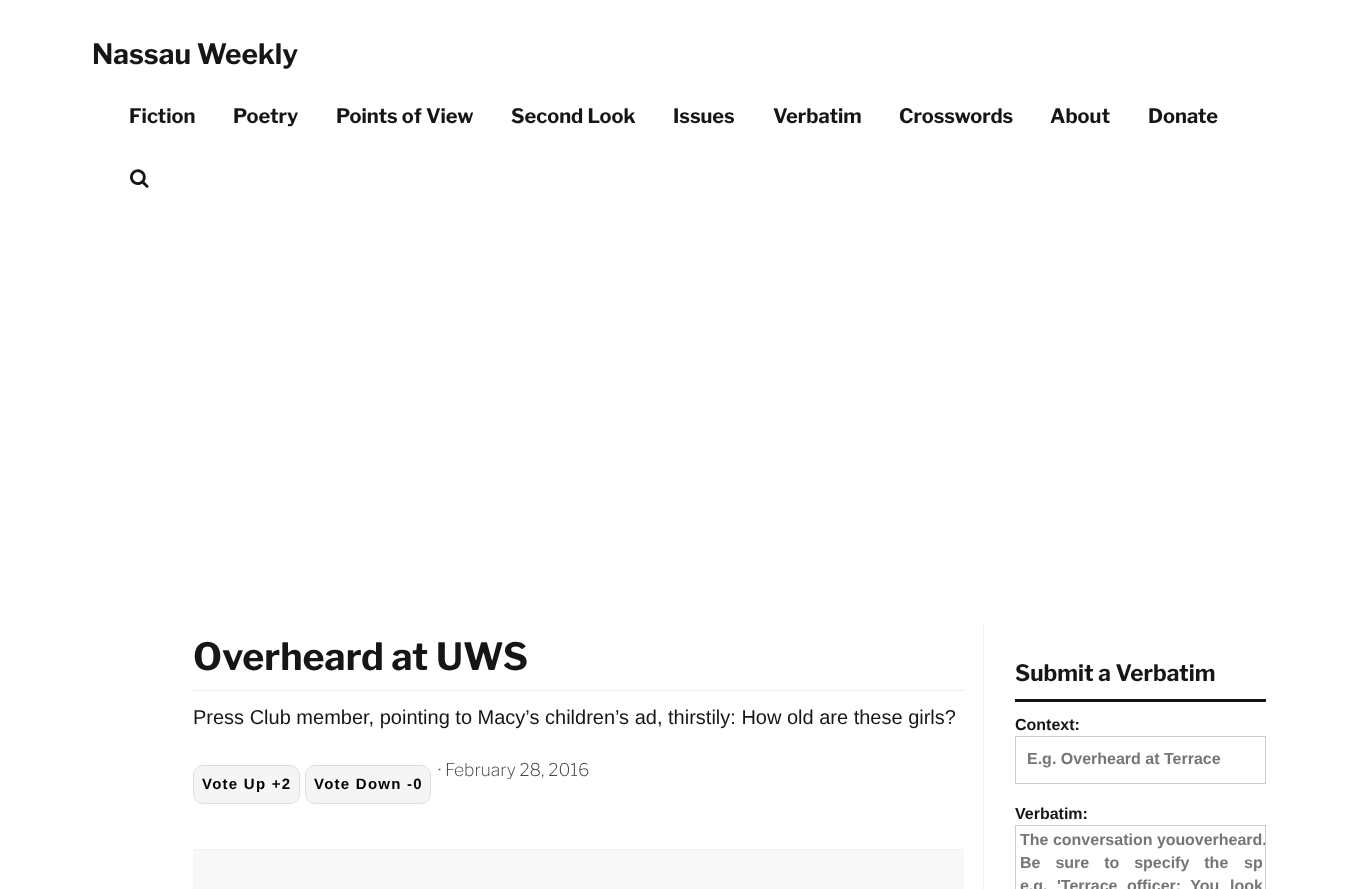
<svg xmlns="http://www.w3.org/2000/svg" width="1358" height="889" viewBox="0 0 1358 889">
  <defs>
    <clipPath id="clip1"><rect x="1016" y="826" width="249" height="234"/></clipPath>
  </defs>
  <rect width="100%" height="100%" fill="rgb(255,255,255)"/>
  <text x="92" y="64" font-family="Libre Franklin" font-size="28" font-weight="bold" fill="rgb(22,22,22)">Nassau Weekly</text>
  <g font-family="Libre Franklin" font-size="20" font-weight="bold" fill="rgb(22,22,22)">
    <text x="129" y="123">Fiction</text>
    <text x="233" y="123">Poetry</text>
    <text x="336" y="123">Points of View</text>
    <text x="511" y="123">Second Look</text>
    <text x="673" y="123">Issues</text>
    <text x="773" y="123">Verbatim</text>
    <text x="899" y="123">Crosswords</text>
    <text x="1050" y="123">About</text>
    <text x="1148" y="123">Donate</text>
  </g>
  <image x="130" y="169" width="19" height="19" href="pic1.png"/>
  <text x="193" y="670" font-family="Libre Franklin" font-size="37.5" font-weight="bold" fill="rgb(22,22,22)">Overheard at UWS</text>
  <rect x="193" y="690" width="771" height="1" fill="rgb(238,238,238)"/>
  <text x="193" y="724" font-family="Liberation Sans" font-size="20" fill="rgb(22,22,22)">Press Club member, pointing to Macy’s children’s ad, thirstily: How old are these girls?</text>
  <text x="438" y="776" font-family="Libre Franklin" font-size="17.5" font-weight="200" fill="rgb(69,69,69)">· February 28, 2016</text>
  <rect x="193.5" y="765.5" width="106" height="38" rx="9.5" fill="rgb(245,245,245)" stroke="rgb(221,221,221)"/>
  <text x="202" y="789" font-family="Liberation Sans" font-size="15" font-weight="bold" letter-spacing="1.25" fill="rgb(0,0,0)">Vote Up +2</text>
  <rect x="305.5" y="765.5" width="125" height="38" rx="9.5" fill="rgb(245,245,245)" stroke="rgb(221,221,221)"/>
  <text x="314" y="789" font-family="Liberation Sans" font-size="15" font-weight="bold" letter-spacing="1.25" fill="rgb(0,0,0)">Vote Down -0</text>
  <rect x="193" y="850" width="771" height="39" fill="rgb(248,248,248)"/>
  <rect x="193" y="849" width="771" height="1" fill="rgb(243,243,243)"/>
  <rect x="983" y="624" width="1" height="265" fill="rgb(238,238,238)"/>
  <rect x="1015" y="699" width="251" height="3" fill="rgb(22,22,22)"/>
  <text x="1015" y="681" font-family="Libre Franklin" font-size="22.5" font-weight="bold" fill="rgb(22,22,22)">Submit a Verbatim</text>
  <text x="1015" y="730" font-family="Liberation Sans" font-size="16" font-weight="bold" fill="rgb(22,22,22)">Context:</text>
  <rect x="1015.5" y="736.5" width="250" height="47" fill="none" stroke="rgb(204,204,204)"/>
  <text x="1027" y="764" font-family="Liberation Sans" font-size="16" font-weight="bold" fill="rgb(117,117,117)">E.g. Overheard at Terrace</text>
  <text x="1015" y="819" font-family="Liberation Sans" font-size="16" font-weight="bold" fill="rgb(22,22,22)">Verbatim:</text>
  <rect x="1015.5" y="825.5" width="250" height="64" fill="none" stroke="rgb(204,204,204)"/>
  <text x="1020" y="845" font-family="Liberation Sans" font-size="16" font-weight="bold" fill="rgb(117,117,117)">The conversation you</text>
  <g clip-path="url(#clip1)">
    <text x="1185" y="845" font-family="Liberation Sans" font-size="16" font-weight="bold" fill="rgb(117,117,117)">overheard.</text>
  </g>
  <g font-family="Liberation Sans" font-size="16" font-weight="bold" fill="rgb(117,117,117)">
    <text x="1020" y="868" word-spacing="10.5">Be sure to specify the</text>
    <text x="1244" y="868">sp</text>
    <text x="1020" y="891" word-spacing="5">e.g. 'Terrace officer: You</text>
    <text x="1230" y="891">look</text>
  </g>
</svg>
